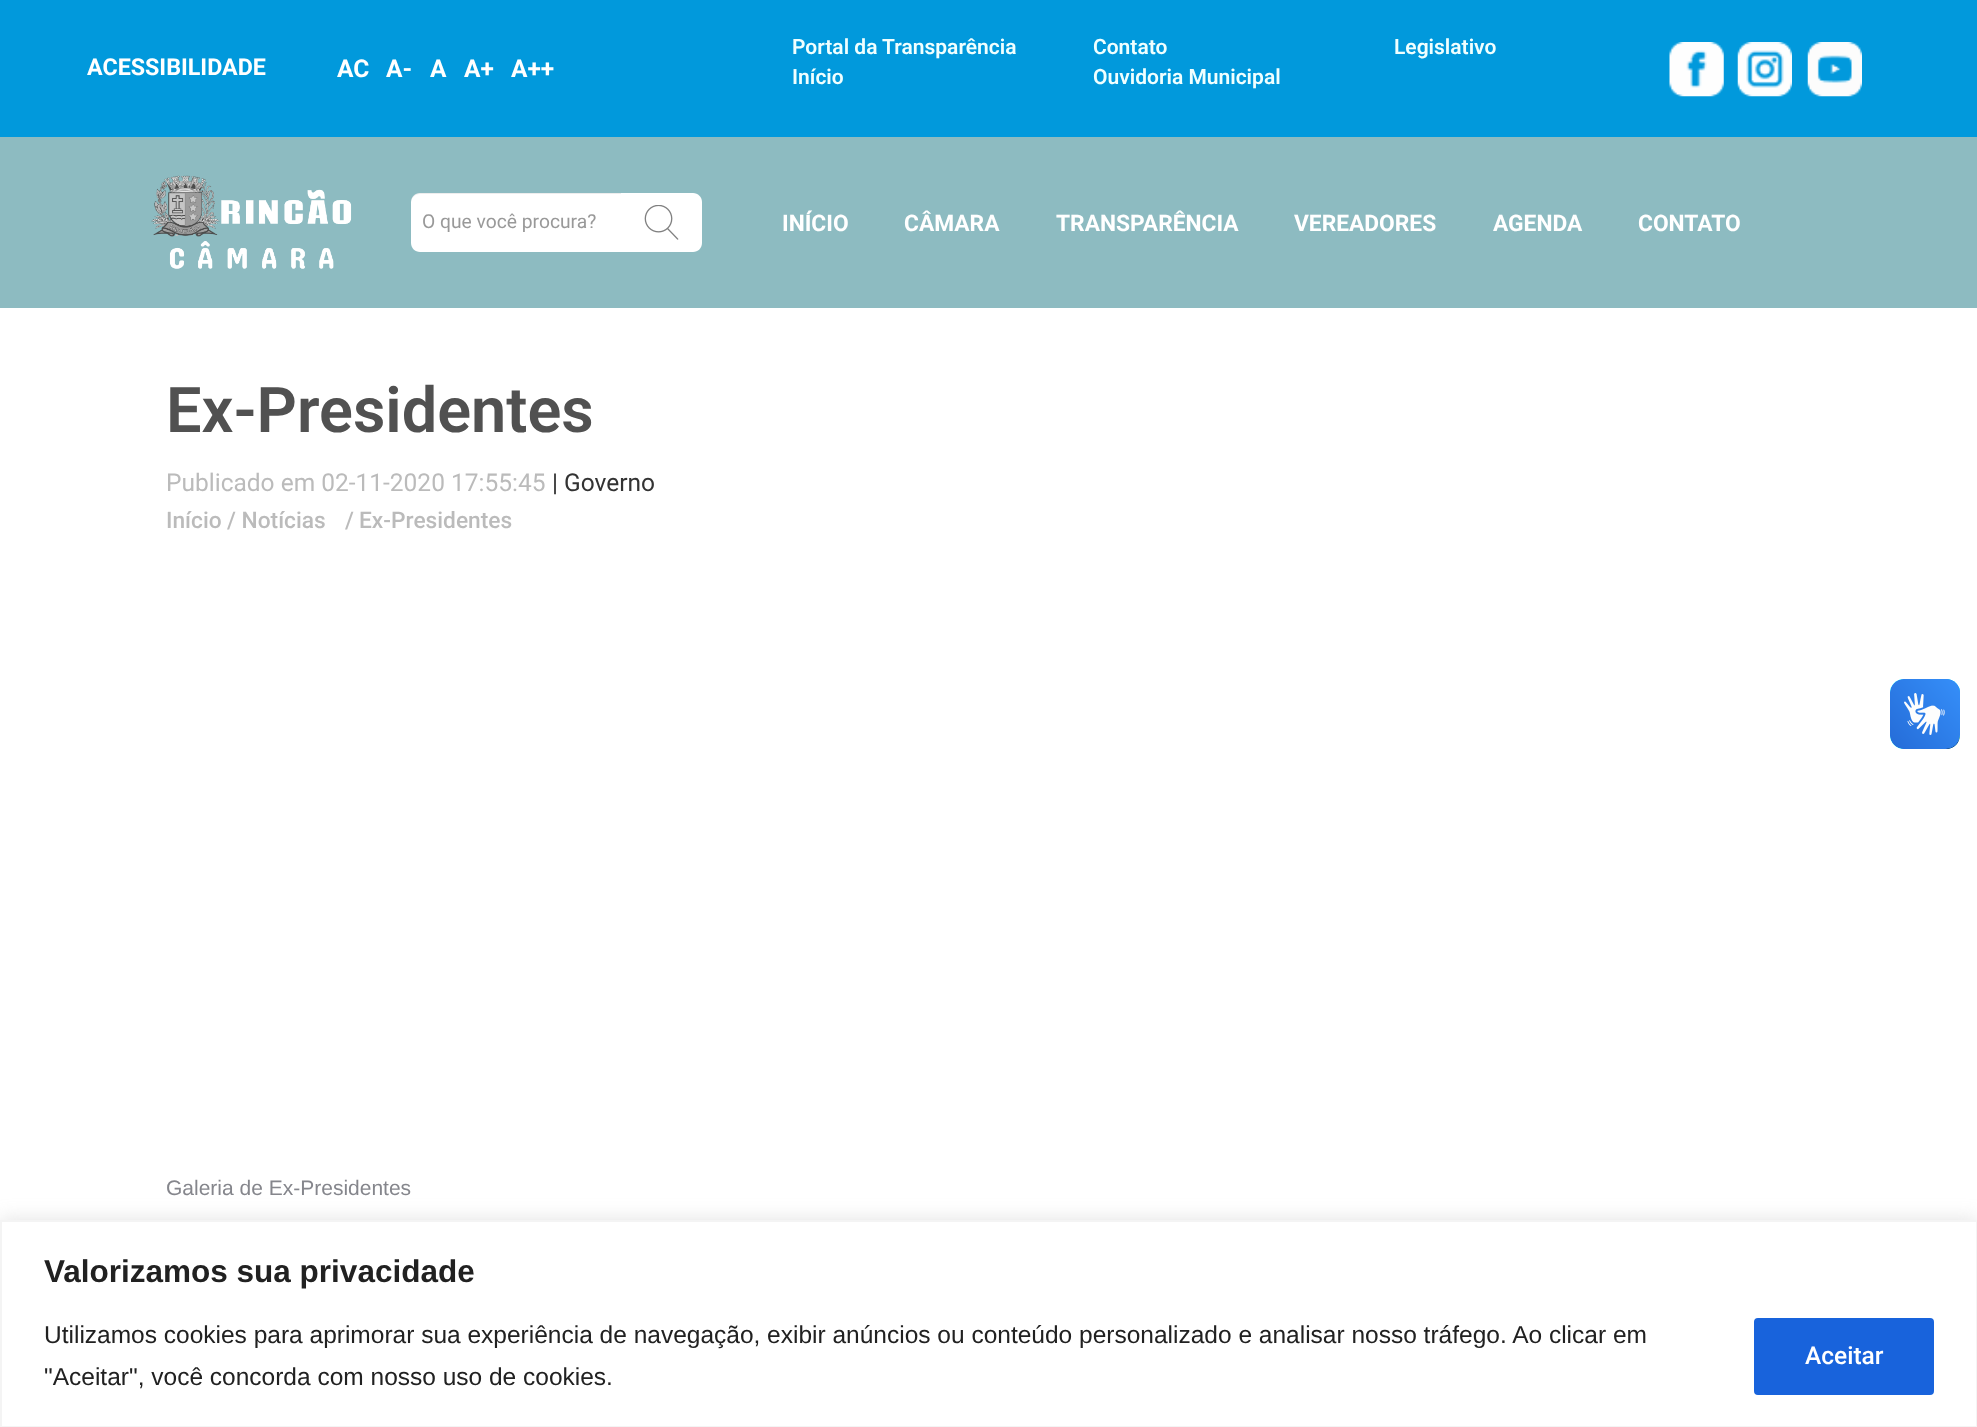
<svg xmlns="http://www.w3.org/2000/svg" width="1977" height="1427" viewBox="0 0 1977 1427">
  <rect width="100%" height="100%" fill="rgb(255,255,255)"/>
  <rect x="0" y="137" width="1977" height="171" fill="rgb(141,187,193)"/>
  <rect x="0" y="0" width="1977" height="137" fill="rgb(1,153,220)"/>
  <text x="87" y="75" font-family="Roboto" font-size="23.25" font-weight="bold" fill="rgb(255,255,255)">ACESSIBILIDADE</text>
  <g font-family="Roboto" font-size="24.5" font-weight="bold" fill="rgb(255,255,255)">
    <text x="337" y="77">AC</text>
    <text x="386" y="77">A-</text>
    <text x="430" y="77">A</text>
    <text x="464" y="77">A+</text>
    <text x="511" y="77">A++</text>
  </g>
  <g font-family="Roboto" font-size="21" font-weight="600" fill="rgb(240,255,255)">
    <text x="792" y="54">Portal da Transparência</text>
    <text x="1093" y="54">Contato</text>
    <text x="1394" y="54">Legislativo</text>
    <text x="792" y="84">Início</text>
    <text x="1093" y="84">Ouvidoria Municipal</text>
  </g>
  <image x="1669" y="42" width="55" height="55" href="pic1.png"/>
  <image x="1737" y="42" width="55" height="55" href="pic2.png"/>
  <image x="1807" y="42" width="55" height="55" href="pic3.png"/>
  <image x="151" y="175" width="201" height="94" href="pic4.png"/>
  <path d="M420 193H621V252H420C415 252 411 248 411 243V202C411 197 415 193 420 193Z" fill="rgb(255,255,255)"/>
  <path d="M420 194H621V193H420C415 193 411 197 411 202V203C411 198 415 194 420 194Z" fill="rgba(0,0,0,0.07)"/>
  <text x="422" y="228" font-family="Roboto" font-size="19.25" fill="rgb(153,153,153)">O que você procura?</text>
  <path d="M621 193H693C698 193 702 197 702 202V243C702 248 698 252 693 252H621Z" fill="rgb(255,255,255)"/>
  <image x="644" y="205" width="35" height="35" href="pic5.png"/>
  <g font-family="Roboto" font-size="22.75" font-weight="bold" fill="rgb(255,255,255)">
    <text x="782" y="231">INÍCIO</text>
    <text x="904" y="231">CÂMARA</text>
    <text x="1056" y="231">TRANSPARÊNCIA</text>
    <text x="1294" y="231">VEREADORES</text>
    <text x="1493" y="231">AGENDA</text>
    <text x="1638" y="231">CONTATO</text>
  </g>
  <text x="166" y="432" font-family="Roboto" font-size="63" font-weight="600" fill="rgb(81,81,81)">Ex-Presidentes</text>
  <text x="166" y="491" font-family="Roboto" font-size="24.5" fill="rgb(187,187,187)">Publicado em 02-11-2020 17:55:45</text>
  <text x="552" y="491" font-family="Roboto" font-size="24.5" fill="rgb(51,51,51)">| Governo</text>
  <g font-family="Roboto" font-size="22.75" font-weight="500" fill="rgb(187,187,187)">
    <text x="166" y="528">Início</text>
    <text x="227" y="528">/ Notícias</text>
    <text x="345" y="528">/</text>
    <text x="359" y="528">Ex-Presidentes</text>
  </g>
  <text x="166" y="1195" font-family="Liberation Sans" font-size="21" fill="rgb(133,134,140)">Galeria de Ex-Presidentes</text>
  <rect x="1890" y="679" width="70" height="70" rx="14" fill="rgb(0,255,255)"/>
  <image x="1890" y="679" width="70" height="70" href="pic6.png"/>
  <image x="1890" y="679" width="70" height="70" href="pic7.png"/>
  <rect x="0" y="1218" width="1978" height="208" fill="rgba(172,171,171,0.3)" filter="blur(9px)"/>
  <rect x="1" y="1221" width="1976" height="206" fill="rgb(255,255,255)" stroke="rgb(244,244,244)" stroke-width="2"/>
  <text x="44" y="1282" font-family="Liberation Sans" font-size="31.5" font-weight="bold" fill="rgb(33,33,33)">Valorizamos sua privacidade</text>
  <g font-family="Liberation Sans" font-size="24.5" fill="rgb(33,33,33)">
    <text>
      <tspan x="44" y="1343">Utilizamos cookies para aprimorar sua experiência de navegação, exibir anúncios ou conteúdo personalizado e analisar nosso tráfego. Ao clicar em</tspan>
      <tspan x="44" y="1385">"Aceitar", você concorda com nosso uso de cookies.</tspan>
    </text>
  </g>
  <rect x="1756" y="1320" width="176" height="73" rx="2" fill="rgb(24,99,220)" stroke="rgb(24,99,220)" stroke-width="4"/>
  <text x="1805" y="1364" font-family="Roboto" font-size="24.5" font-weight="500" fill="rgb(255,255,255)">Aceitar</text>
</svg>
